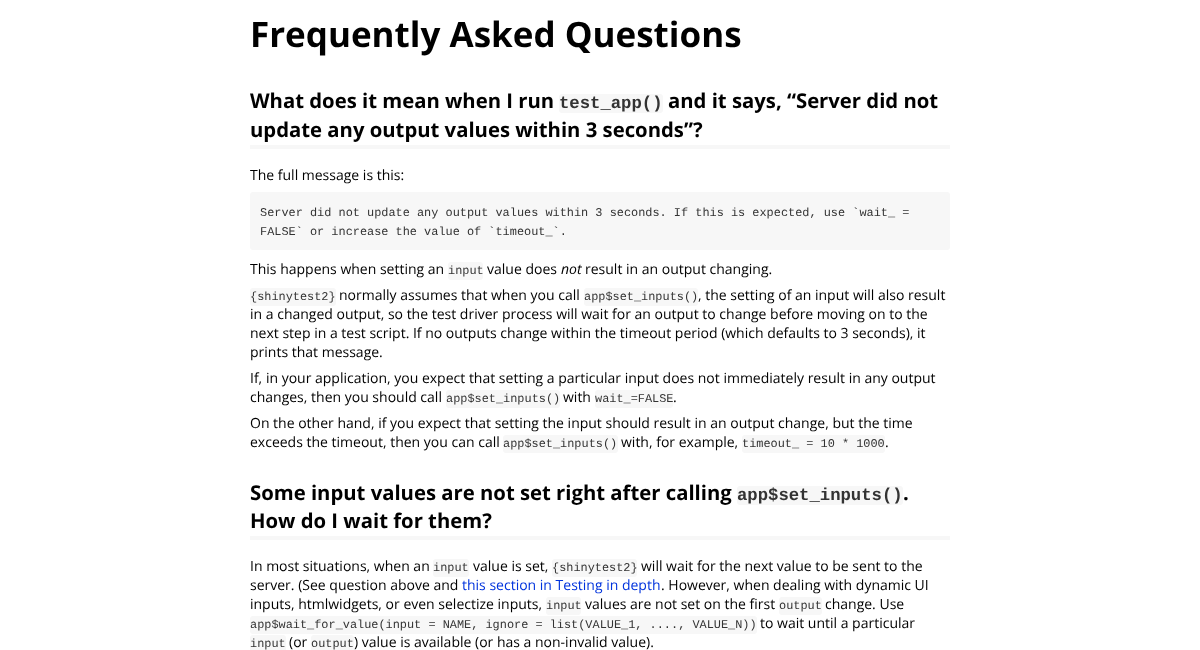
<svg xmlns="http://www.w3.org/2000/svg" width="1200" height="650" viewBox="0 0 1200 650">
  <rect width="100%" height="100%" fill="rgb(255,255,255)"/>
  <text x="250" y="47" font-family="Open Sans" font-size="35" font-weight="bold" fill="rgb(0,0,0)">Frequently Asked Questions</text>
  <rect x="250" y="145" width="700" height="4" fill="rgb(247,247,247)"/>
  <text x="250" y="108" font-family="Open Sans" font-size="20.3" font-weight="bold" fill="rgb(0,0,0)">What does it mean when I run</text>
  <rect x="559" y="94" width="104" height="19" rx="3" fill="rgb(247,247,247)"/>
  <text x="559" y="108" font-family="Liberation Mono" font-size="17.25" font-weight="bold" fill="rgb(51,51,51)">test_app()</text>
  <g font-family="Open Sans" font-size="20.3" font-weight="bold" fill="rgb(0,0,0)">
    <text x="668" y="108">and it says, “Server did not</text>
    <text x="250" y="137">update any output values within 3 seconds”?</text>
  </g>
  <text x="250" y="180" font-family="Open Sans" font-size="14" fill="rgb(0,0,0)">The full message is this:</text>
  <rect x="250" y="192" width="700" height="58" rx="3" fill="rgb(247,247,247)"/>
  <g font-family="Liberation Mono" font-size="11.9" fill="rgb(51,51,51)">
    <text>
      <tspan x="260" y="216">Server did not update any output values within 3 seconds. If this is expected, use `wait_ =</tspan>
      <tspan x="260" y="235">FALSE` or increase the value of `timeout_`.</tspan>
    </text>
  </g>
  <text x="250" y="274" font-family="Open Sans" font-size="14" fill="rgb(0,0,0)">This happens when setting an</text>
  <rect x="448" y="262" width="35" height="18" rx="3" fill="rgb(247,247,247)"/>
  <text x="448" y="274" font-family="Liberation Mono" font-size="11.9" fill="rgb(51,51,51)">input</text>
  <text x="487" y="274" font-family="Open Sans" font-size="14" fill="rgb(0,0,0)">value does</text>
  <text x="561" y="274" font-family="Open Sans" font-size="14" font-style="italic" fill="rgb(0,0,0)">not</text>
  <text x="585" y="274" font-family="Open Sans" font-size="14" fill="rgb(0,0,0)">result in an output changing.</text>
  <rect x="250" y="288" width="86" height="18" rx="3" fill="rgb(247,247,247)"/>
  <text x="250" y="300" font-family="Liberation Mono" font-size="11.9" fill="rgb(51,51,51)">{shinytest2}</text>
  <text x="339" y="300" font-family="Open Sans" font-size="14" fill="rgb(0,0,0)">normally assumes that when you call</text>
  <rect x="584" y="288" width="114" height="18" rx="3" fill="rgb(247,247,247)"/>
  <text x="584" y="300" font-family="Liberation Mono" font-size="11.9" fill="rgb(51,51,51)">app$set_inputs()</text>
  <g font-family="Open Sans" font-size="14" fill="rgb(0,0,0)">
    <text x="698" y="300">, the setting of an input will also result</text>
    <text>
      <tspan x="250" y="319">in a changed output, so the test driver process will wait for an output to change before moving on to the</tspan>
      <tspan x="250" y="338">next step in a test script. If no outputs change within the timeout period (which defaults to 3 seconds), it</tspan>
      <tspan x="250" y="357">prints that message.</tspan>
      <tspan x="250" y="383">If, in your application, you expect that setting a particular input does not immediately result in any output</tspan>
      <tspan x="250" y="402">changes, then you should call</tspan>
    </text>
  </g>
  <rect x="446" y="390" width="114" height="18" rx="3" fill="rgb(247,247,247)"/>
  <text x="446" y="402" font-family="Liberation Mono" font-size="11.9" fill="rgb(51,51,51)">app$set_inputs()</text>
  <text x="563" y="402" font-family="Open Sans" font-size="14" fill="rgb(0,0,0)">with</text>
  <rect x="595" y="390" width="78" height="18" rx="3" fill="rgb(247,247,247)"/>
  <text x="595" y="402" font-family="Liberation Mono" font-size="11.9" fill="rgb(51,51,51)">wait_=FALSE</text>
  <g font-family="Open Sans" font-size="14" fill="rgb(0,0,0)">
    <text x="673" y="402">.</text>
    <text>
      <tspan x="250" y="428">On the other hand, if you expect that setting the input should result in an output change, but the time</tspan>
      <tspan x="250" y="447">exceeds the timeout, then you can call</tspan>
    </text>
  </g>
  <rect x="503" y="435" width="115" height="18" rx="3" fill="rgb(247,247,247)"/>
  <text x="503" y="447" font-family="Liberation Mono" font-size="11.9" fill="rgb(51,51,51)">app$set_inputs()</text>
  <text x="621" y="447" font-family="Open Sans" font-size="14" fill="rgb(0,0,0)">with, for example,</text>
  <rect x="742" y="435" width="143" height="18" rx="3" fill="rgb(247,247,247)"/>
  <text x="742" y="447" font-family="Liberation Mono" font-size="11.9" fill="rgb(51,51,51)">timeout_ = 10 * 1000</text>
  <text x="885" y="447" font-family="Open Sans" font-size="14" fill="rgb(0,0,0)">.</text>
  <rect x="250" y="536" width="700" height="4" fill="rgb(247,247,247)"/>
  <text x="250" y="500" font-family="Open Sans" font-size="20.3" font-weight="bold" fill="rgb(0,0,0)">Some input values are not set right after calling</text>
  <rect x="737" y="486" width="166" height="19" rx="3" fill="rgb(247,247,247)"/>
  <text x="737" y="500" font-family="Liberation Mono" font-size="17.25" font-weight="bold" fill="rgb(51,51,51)">app$set_inputs()</text>
  <g font-family="Open Sans" font-size="20.3" font-weight="bold" fill="rgb(0,0,0)">
    <text x="903" y="500">.</text>
    <text x="250" y="528">How do I wait for them?</text>
  </g>
  <text x="250" y="571" font-family="Open Sans" font-size="14" fill="rgb(0,0,0)">In most situations, when an</text>
  <rect x="433" y="559" width="36" height="18" rx="3" fill="rgb(247,247,247)"/>
  <text x="433" y="571" font-family="Liberation Mono" font-size="11.9" fill="rgb(51,51,51)">input</text>
  <text x="473" y="571" font-family="Open Sans" font-size="14" fill="rgb(0,0,0)">value is set,</text>
  <rect x="552" y="559" width="85" height="18" rx="3" fill="rgb(247,247,247)"/>
  <text x="552" y="571" font-family="Liberation Mono" font-size="11.9" fill="rgb(51,51,51)">{shinytest2}</text>
  <g font-family="Open Sans" font-size="14" fill="rgb(0,0,0)">
    <text x="641" y="571">will wait for the next value to be sent to the</text>
    <text x="250" y="590">server. (See question above and</text>
  </g>
  <text x="462" y="590" font-family="Open Sans" font-size="14" fill="rgb(0,51,221)">this section in Testing in depth</text>
  <g font-family="Open Sans" font-size="14" fill="rgb(0,0,0)">
    <text x="661" y="590">. However, when dealing with dynamic UI</text>
    <text x="250" y="609">inputs, htmlwidgets, or even selectize inputs,</text>
  </g>
  <rect x="546" y="597" width="35" height="18" rx="3" fill="rgb(247,247,247)"/>
  <text x="546" y="609" font-family="Liberation Mono" font-size="11.9" fill="rgb(51,51,51)">input</text>
  <text x="585" y="609" font-family="Open Sans" font-size="14" fill="rgb(0,0,0)">values are not set on the first</text>
  <rect x="779" y="597" width="43" height="18" rx="3" fill="rgb(247,247,247)"/>
  <text x="779" y="609" font-family="Liberation Mono" font-size="11.9" fill="rgb(51,51,51)">output</text>
  <text x="825" y="609" font-family="Open Sans" font-size="14" fill="rgb(0,0,0)">change. Use</text>
  <rect x="250" y="616" width="507" height="18" rx="3" fill="rgb(247,247,247)"/>
  <text x="250" y="628" font-family="Liberation Mono" font-size="11.9" fill="rgb(51,51,51)">app$wait_for_value(input = NAME, ignore = list(VALUE_1, ...., VALUE_N))</text>
  <text x="760" y="628" font-family="Open Sans" font-size="14" fill="rgb(0,0,0)">to wait until a particular</text>
  <rect x="250" y="635" width="36" height="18" rx="3" fill="rgb(247,247,247)"/>
  <text x="250" y="647" font-family="Liberation Mono" font-size="11.9" fill="rgb(51,51,51)">input</text>
  <text x="289" y="647" font-family="Open Sans" font-size="14" fill="rgb(0,0,0)">(or</text>
  <rect x="311" y="635" width="43" height="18" rx="3" fill="rgb(247,247,247)"/>
  <text x="311" y="647" font-family="Liberation Mono" font-size="11.9" fill="rgb(51,51,51)">output</text>
  <text x="354" y="647" font-family="Open Sans" font-size="14" fill="rgb(0,0,0)">) value is available (or has a non-invalid value).</text>
</svg>
